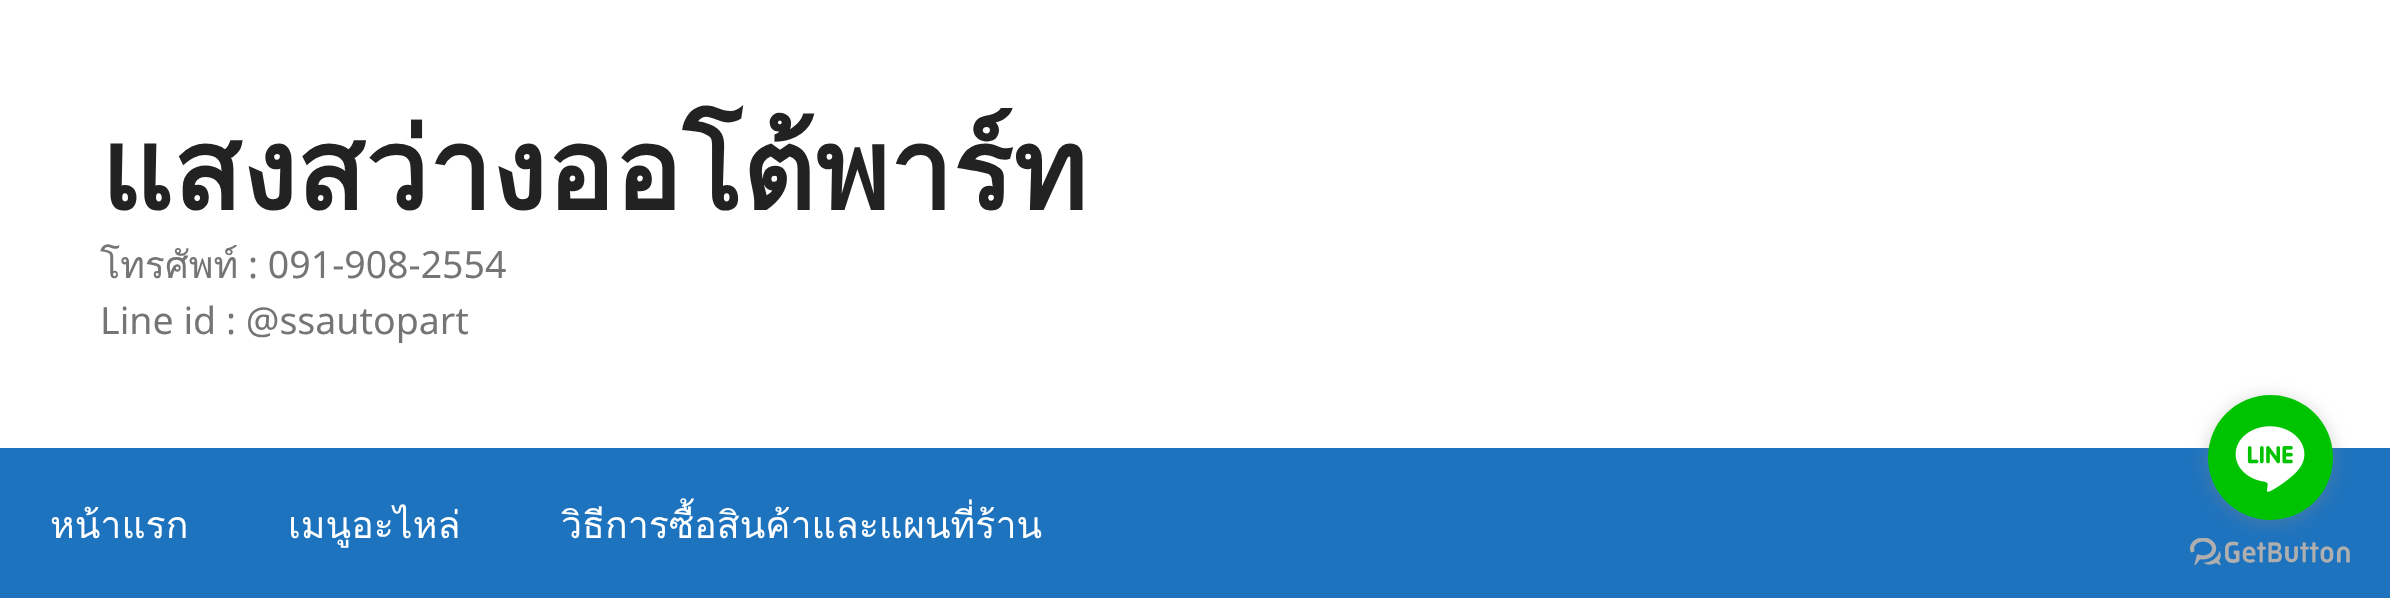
<svg xmlns="http://www.w3.org/2000/svg" width="2390" height="604" viewBox="0 0 2390 604">
  <rect width="100%" height="100%" fill="rgb(30,115,190)"/>
  <rect x="0" y="0" width="2390" height="448" fill="rgb(255,255,255)"/>
  <text x="100" y="210" font-family="Loma" font-size="112.5" font-weight="bold" fill="rgb(34,34,34)">แสงสว่างออโต้พาร์ท</text>
  <text x="100" y="278" font-family="Loma" font-size="37.5" fill="rgb(117,117,117)">โทรศัพท์</text>
  <g font-family="Noto Sans" font-size="37.5" fill="rgb(117,117,117)">
    <text x="248" y="278">: 091-908-2554</text>
    <text x="100" y="334">Line id : @ssautopart</text>
  </g>
  <g font-family="Loma" font-size="37.5" fill="rgb(255,255,255)">
    <text x="50" y="538">หน้าแรก</text>
    <text x="288" y="538">เมนูอะไหล่</text>
    <text x="561" y="538">วิธีการซื้อสินค้าและแผนที่ร้าน</text>
  </g>
  <image x="2190" y="538" width="160" height="27" href="pic2.png"/>
  <rect x="2208" y="398" width="125" height="125" rx="62.5" fill="rgba(136,136,136,0.4)" filter="blur(9px)"/>
  <circle cx="2270.5" cy="457.5" r="62.5" fill="rgb(0,195,0)"/>
  <image x="2235" y="426" width="70" height="66" href="pic1.png"/>
  <rect x="0" y="598" width="2390" height="6" fill="rgb(255,255,255)"/>
</svg>
